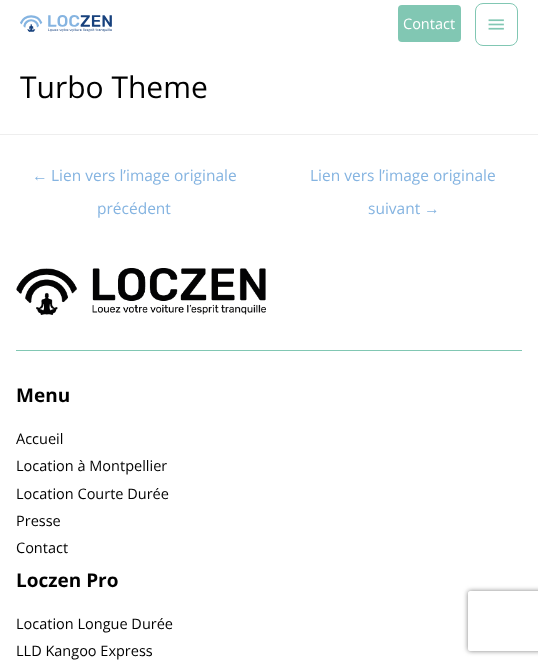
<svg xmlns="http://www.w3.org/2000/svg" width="538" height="665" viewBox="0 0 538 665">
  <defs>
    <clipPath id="clip1"><path d="M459 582H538V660H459ZM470 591H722C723 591 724 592 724 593V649C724 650 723 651 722 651H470C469 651 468 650 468 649V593C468 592 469 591 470 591Z" clip-rule="evenodd"/></clipPath>
  </defs>
  <rect width="100%" height="100%" fill="rgb(255,255,255)"/>
  <image x="20" y="15" width="92" height="17" href="pic1.png"/>
  <rect x="398" y="5" width="63" height="37" rx="4" fill="rgb(129,199,179)"/>
  <text x="403" y="29" font-family="Open Sans" font-size="14.5" fill="rgb(255,255,255)">Contact</text>
  <rect x="475.5" y="3.5" width="42" height="42" rx="7.5" fill="none" stroke="rgb(129,199,179)"/>
  <image x="488" y="19" width="16" height="11" href="pic2.png"/>
  <text x="20" y="98" font-family="Open Sans" font-size="30" fill="rgb(0,0,0)">Turbo Theme</text>
  <rect x="0" y="134" width="538" height="1" fill="rgb(238,238,238)"/>
  <text x="32" y="181" font-family="Liberation Sans" font-size="15.5" fill="rgb(133,180,225)">←</text>
  <g font-family="Open Sans" font-size="15.5" fill="rgb(133,180,225)">
    <text x="51" y="181">Lien vers l’image originale</text>
    <text x="97" y="214">précédent</text>
    <text x="310" y="181">Lien vers l’image originale</text>
    <text x="368" y="214">suivant</text>
  </g>
  <text x="424" y="214" font-family="Liberation Sans" font-size="15.5" fill="rgb(133,180,225)">→</text>
  <image x="16" y="268" width="250" height="47" href="pic3.png"/>
  <rect x="16" y="350" width="506" height="1" fill="rgb(129,199,179)"/>
  <text x="16" y="402" font-family="Open Sans" font-size="19" font-weight="bold" fill="rgb(0,0,0)">Menu</text>
  <g font-family="Open Sans" font-size="14.5" fill="rgb(0,0,0)">
    <text>
      <tspan x="16" y="444">Accueil</tspan>
      <tspan x="16" y="471">Location à Montpellier</tspan>
      <tspan x="16" y="499">Location Courte Durée</tspan>
      <tspan x="16" y="526">Presse</tspan>
      <tspan x="16" y="553">Contact</tspan>
    </text>
  </g>
  <text x="16" y="587" font-family="Open Sans" font-size="19" font-weight="bold" fill="rgb(0,0,0)">Loczen Pro</text>
  <g font-family="Open Sans" font-size="14.5" fill="rgb(0,0,0)">
    <text>
      <tspan x="16" y="629">Location Longue Durée</tspan>
      <tspan x="16" y="656">LLD Kangoo Express</tspan>
    </text>
  </g>
  <g clip-path="url(#clip1)">
    <rect x="468" y="591" width="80" height="60" rx="2" fill="rgb(128,128,128)" filter="blur(2.5px)"/>
  </g>
</svg>
